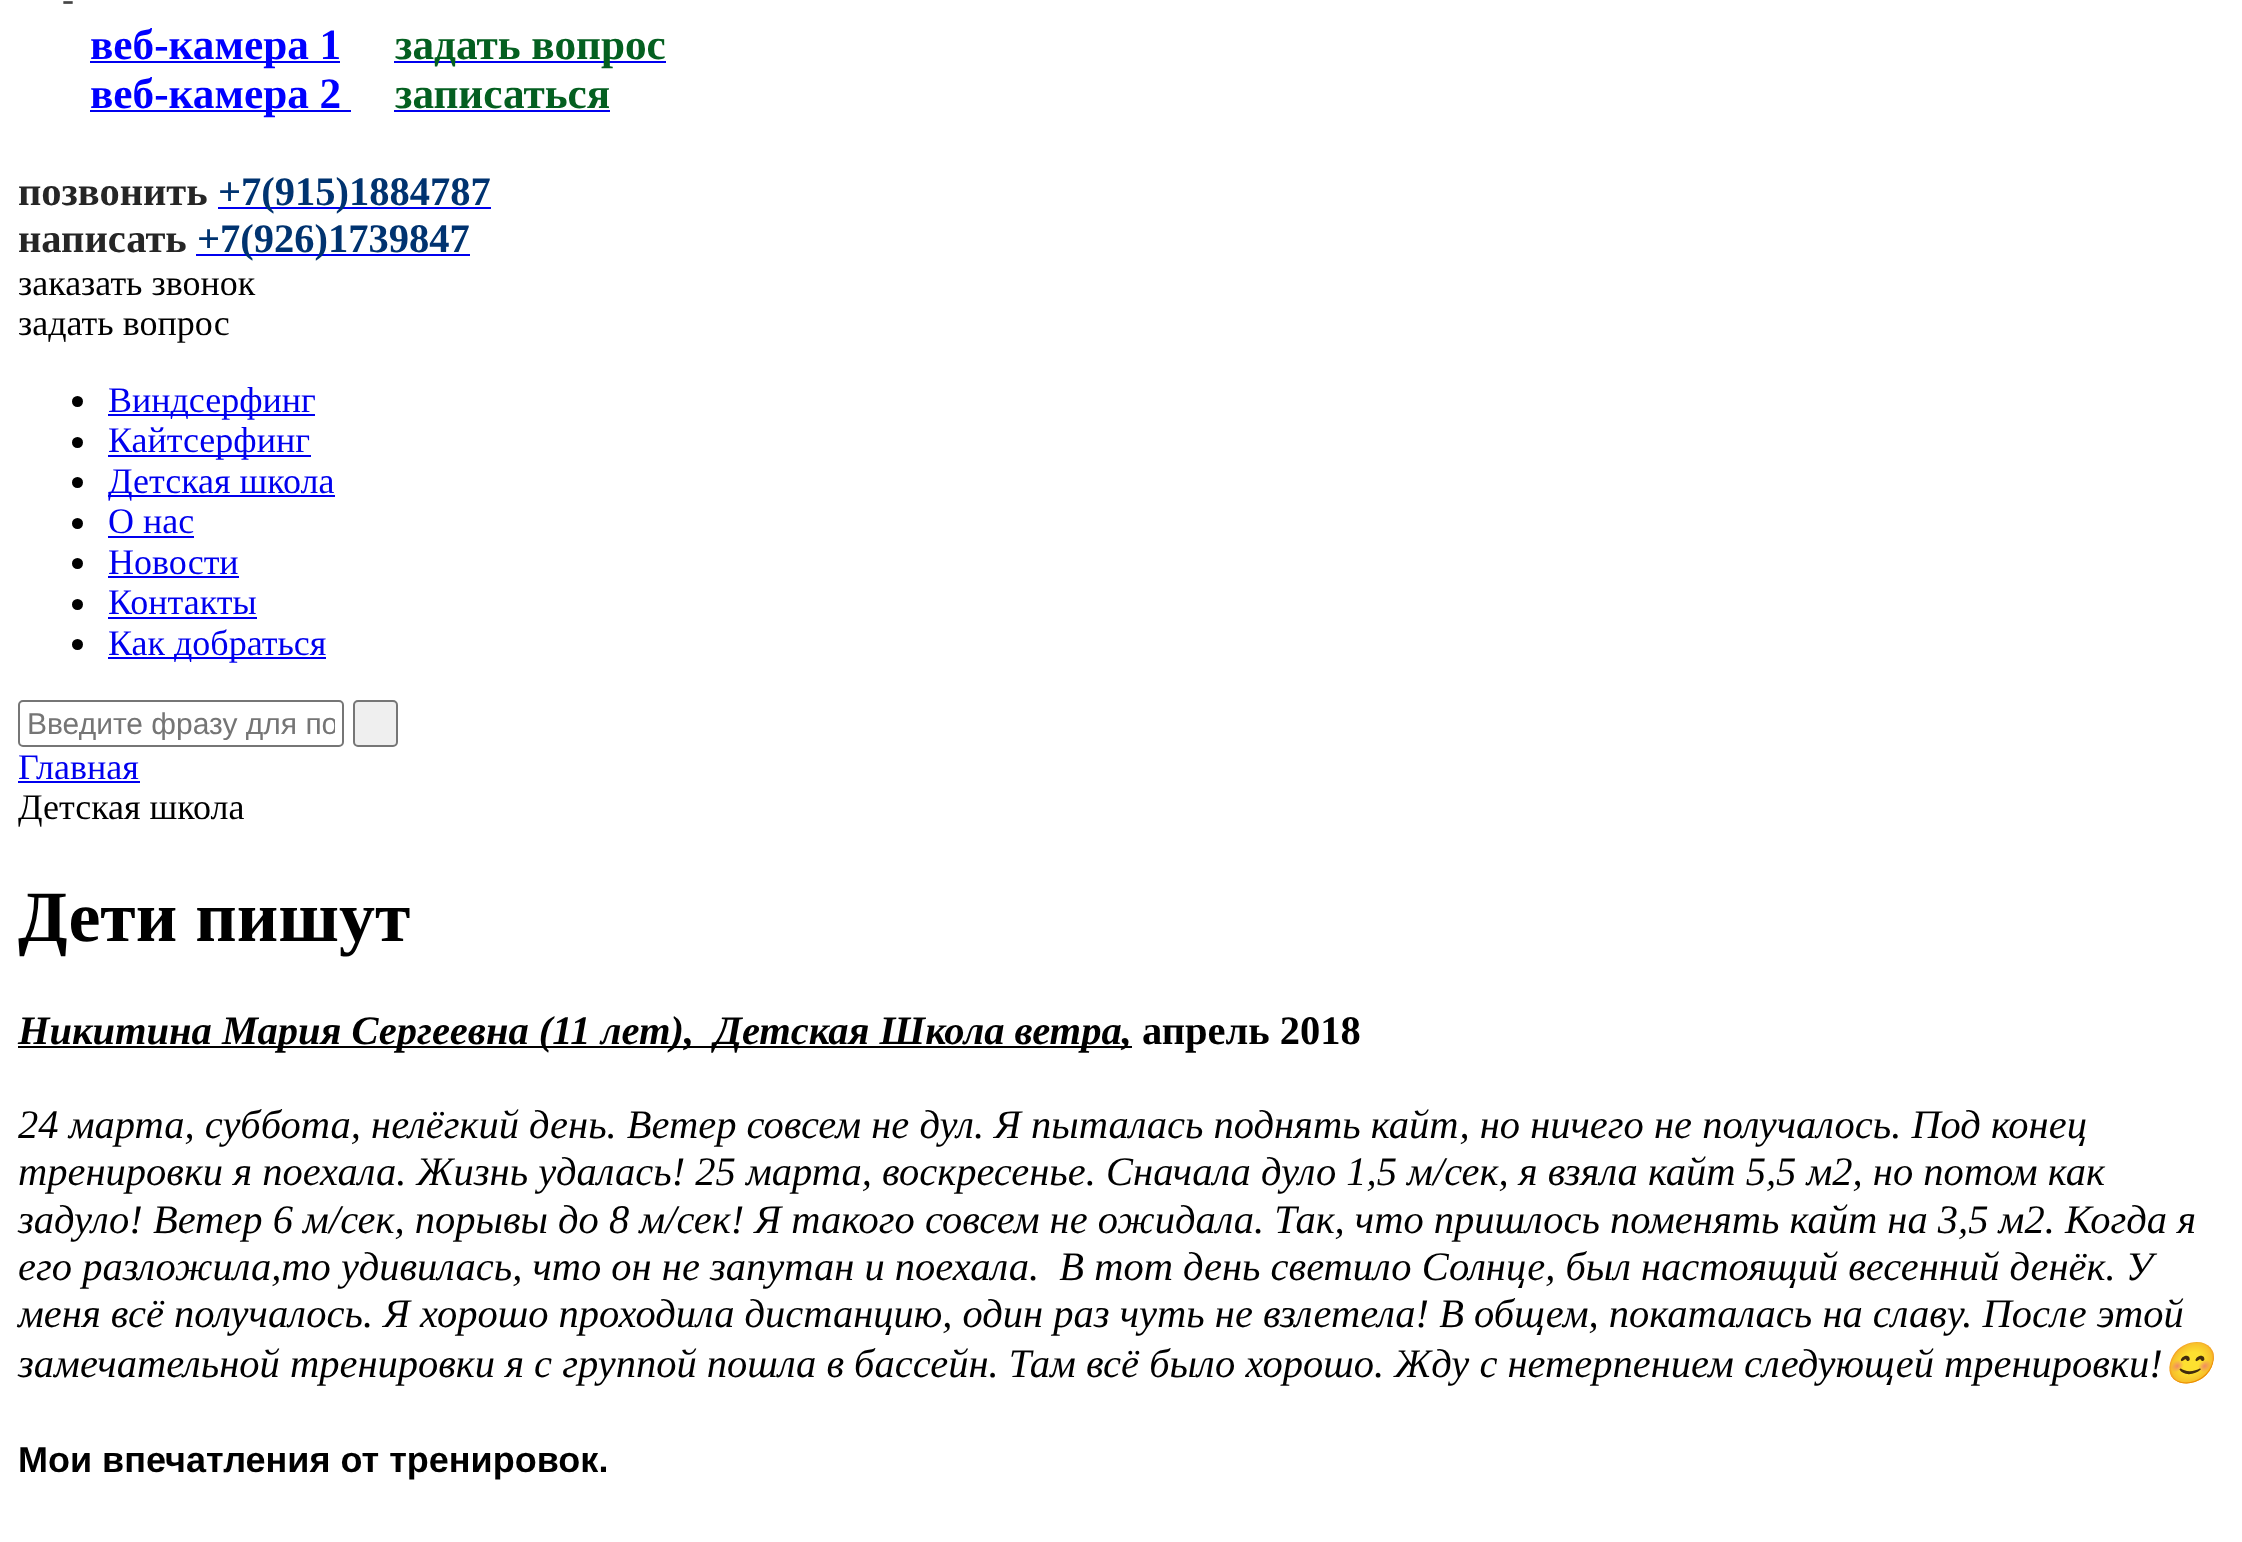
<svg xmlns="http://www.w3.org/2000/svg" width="2242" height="1542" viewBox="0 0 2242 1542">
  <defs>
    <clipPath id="clip1"><rect x="27" y="707" width="308" height="33"/></clipPath>
  </defs>
  <rect width="100%" height="100%" fill="rgb(255,255,255)"/>
  <text x="62" y="11" font-family="Liberation Serif" font-size="36" fill="rgb(70,70,70)">-</text>
  <rect x="90" y="61" width="250" height="2" fill="rgb(0,0,238)"/>
  <text x="90" y="59" font-family="Liberation Serif" font-size="43.25" font-weight="bold" fill="rgb(0,0,255)">веб-камера 1</text>
  <rect x="394" y="61" width="272" height="2" fill="rgb(0,0,238)"/>
  <text x="395" y="59" font-family="Liberation Serif" font-size="43.25" font-weight="bold" fill="rgb(4,95,32)">задать вопрос</text>
  <rect x="90" y="110" width="261" height="2" fill="rgb(0,0,238)"/>
  <text x="90" y="108" font-family="Liberation Serif" font-size="43.25" font-weight="bold" fill="rgb(0,0,255)">веб-камера 2</text>
  <text x="395" y="108" font-family="Liberation Serif" font-size="43.25" font-weight="bold" fill="rgb(4,95,32)">записаться</text>
  <rect x="394" y="110" width="216" height="2" fill="rgb(0,0,238)"/>
  <text x="18" y="205" font-family="Liberation Serif" font-size="40.5" font-weight="bold" fill="rgb(38,38,38)">позвонить</text>
  <rect x="218" y="207" width="273" height="2" fill="rgb(0,0,238)"/>
  <text x="218" y="205" font-family="Liberation Serif" font-size="40.5" font-weight="bold" fill="rgb(0,51,112)">+7(915)1884787</text>
  <text x="18" y="252" font-family="Liberation Serif" font-size="40.5" font-weight="bold" fill="rgb(38,38,38)">написать</text>
  <rect x="196" y="254" width="274" height="2" fill="rgb(0,0,238)"/>
  <text x="197" y="252" font-family="Liberation Serif" font-size="40.5" font-weight="bold" fill="rgb(0,51,112)">+7(926)1739847</text>
  <g font-family="Liberation Serif" font-size="36" fill="rgb(0,0,0)">
    <text>
      <tspan x="18" y="295">заказать звонок</tspan>
      <tspan x="18" y="335">задать вопрос</tspan>
    </text>
  </g>
  <circle cx="77.5" cy="401.5" r="5.5" fill="rgb(0,0,0)"/>
  <rect x="108" y="414" width="207" height="2" fill="rgb(0,0,238)"/>
  <text x="108" y="412" font-family="Liberation Serif" font-size="36" fill="rgb(0,0,238)">Виндсерфинг</text>
  <circle cx="77.5" cy="442.5" r="5.5" fill="rgb(0,0,0)"/>
  <rect x="108" y="455" width="203" height="2" fill="rgb(0,0,238)"/>
  <text x="108" y="452" font-family="Liberation Serif" font-size="36" fill="rgb(0,0,238)">Кайтсерфинг</text>
  <circle cx="77.5" cy="482.5" r="5.5" fill="rgb(0,0,0)"/>
  <rect x="108" y="495" width="227" height="2" fill="rgb(0,0,238)"/>
  <text x="108" y="493" font-family="Liberation Serif" font-size="36" fill="rgb(0,0,238)">Детская школа</text>
  <circle cx="77.5" cy="523.5" r="5.5" fill="rgb(0,0,0)"/>
  <text x="108" y="533" font-family="Liberation Serif" font-size="36" fill="rgb(0,0,238)">О нас</text>
  <rect x="108" y="536" width="86" height="2" fill="rgb(0,0,238)"/>
  <circle cx="77.5" cy="563.5" r="5.5" fill="rgb(0,0,0)"/>
  <text x="108" y="574" font-family="Liberation Serif" font-size="36" fill="rgb(0,0,238)">Новости</text>
  <rect x="108" y="576" width="131" height="2" fill="rgb(0,0,238)"/>
  <circle cx="77.5" cy="604.5" r="5.5" fill="rgb(0,0,0)"/>
  <text x="108" y="614" font-family="Liberation Serif" font-size="36" fill="rgb(0,0,238)">Контакты</text>
  <rect x="108" y="617" width="149" height="2" fill="rgb(0,0,238)"/>
  <circle cx="77.5" cy="644.5" r="5.5" fill="rgb(0,0,0)"/>
  <rect x="108" y="657" width="218" height="2" fill="rgb(0,0,238)"/>
  <text x="108" y="655" font-family="Liberation Serif" font-size="36" fill="rgb(0,0,238)">Как добраться</text>
  <rect x="19" y="701" width="324" height="45" rx="4" fill="none" stroke="rgb(118,118,118)" stroke-width="2"/>
  <g clip-path="url(#clip1)">
    <text x="27" y="734" font-family="Liberation Sans" font-size="30" fill="rgb(117,117,117)">Введите фразу для по</text>
  </g>
  <rect x="354" y="701" width="43" height="45" rx="4" fill="rgb(239,239,239)" stroke="rgb(118,118,118)" stroke-width="2"/>
  <text x="18" y="779" font-family="Liberation Serif" font-size="36" fill="rgb(0,0,238)">Главная</text>
  <rect x="18" y="781" width="122" height="2" fill="rgb(0,0,238)"/>
  <text x="18" y="819" font-family="Liberation Serif" font-size="36" fill="rgb(0,0,0)">Детская школа</text>
  <text x="18" y="941" font-family="Liberation Serif" font-size="72" font-weight="bold" fill="rgb(0,0,0)">Дети пишут</text>
  <rect x="18" y="1046" width="1114" height="2" fill="rgb(0,0,0)"/>
  <text x="18" y="1044" font-family="Liberation Serif" font-size="40.5" font-weight="bold" font-style="italic" fill="rgb(0,0,0)" xml:space="preserve">Никитина Мария Сергеевна (11 лет),  Детская Школа ветра,</text>
  <text x="1142" y="1044" font-family="Liberation Serif" font-size="40.5" font-weight="bold" fill="rgb(0,0,0)">апрель 2018</text>
  <g font-family="Liberation Serif" font-size="40.5" font-style="italic" fill="rgb(0,0,0)">
    <text xml:space="preserve"><tspan x="18" y="1138">24 марта, суббота, нелёгкий день. Ветер совсем не дул. Я пыталась поднять кайт, но ничего не получалось. Под конец</tspan><tspan x="18" y="1185">тренировки я поехала. Жизнь удалась! 25 марта, воскресенье. Сначала дуло 1,5 м/сек, я взяла кайт 5,5 м2, но потом как</tspan><tspan x="18" y="1233">задуло! Ветер 6 м/сек, порывы до 8 м/сек! Я такого совсем не ожидала. Так, что пришлось поменять кайт на 3,5 м2. Когда я</tspan><tspan x="18" y="1280">его разложила,то удивилась, что он не запутан и поехала.  В тот день светило Солнце, был настоящий весенний денёк. У</tspan><tspan x="18" y="1327">меня всё получалось. Я хорошо проходила дистанцию, один раз чуть не взлетела! В общем, покаталась на славу. После этой</tspan><tspan x="18" y="1377">замечательной тренировки я с группой пошла в бассейн. Там всё было хорошо. Жду с нетерпением следующей тренировки!</tspan></text>
  </g>
  <text x="2163" y="1377" font-family="Noto Color Emoji" font-size="40.5" font-style="italic" fill="rgb(0,0,0)">😊</text>
  <text x="18" y="1472" font-family="Liberation Sans" font-size="36" font-weight="bold" fill="rgb(0,0,0)">Мои впечатления от тренировок.</text>
</svg>
